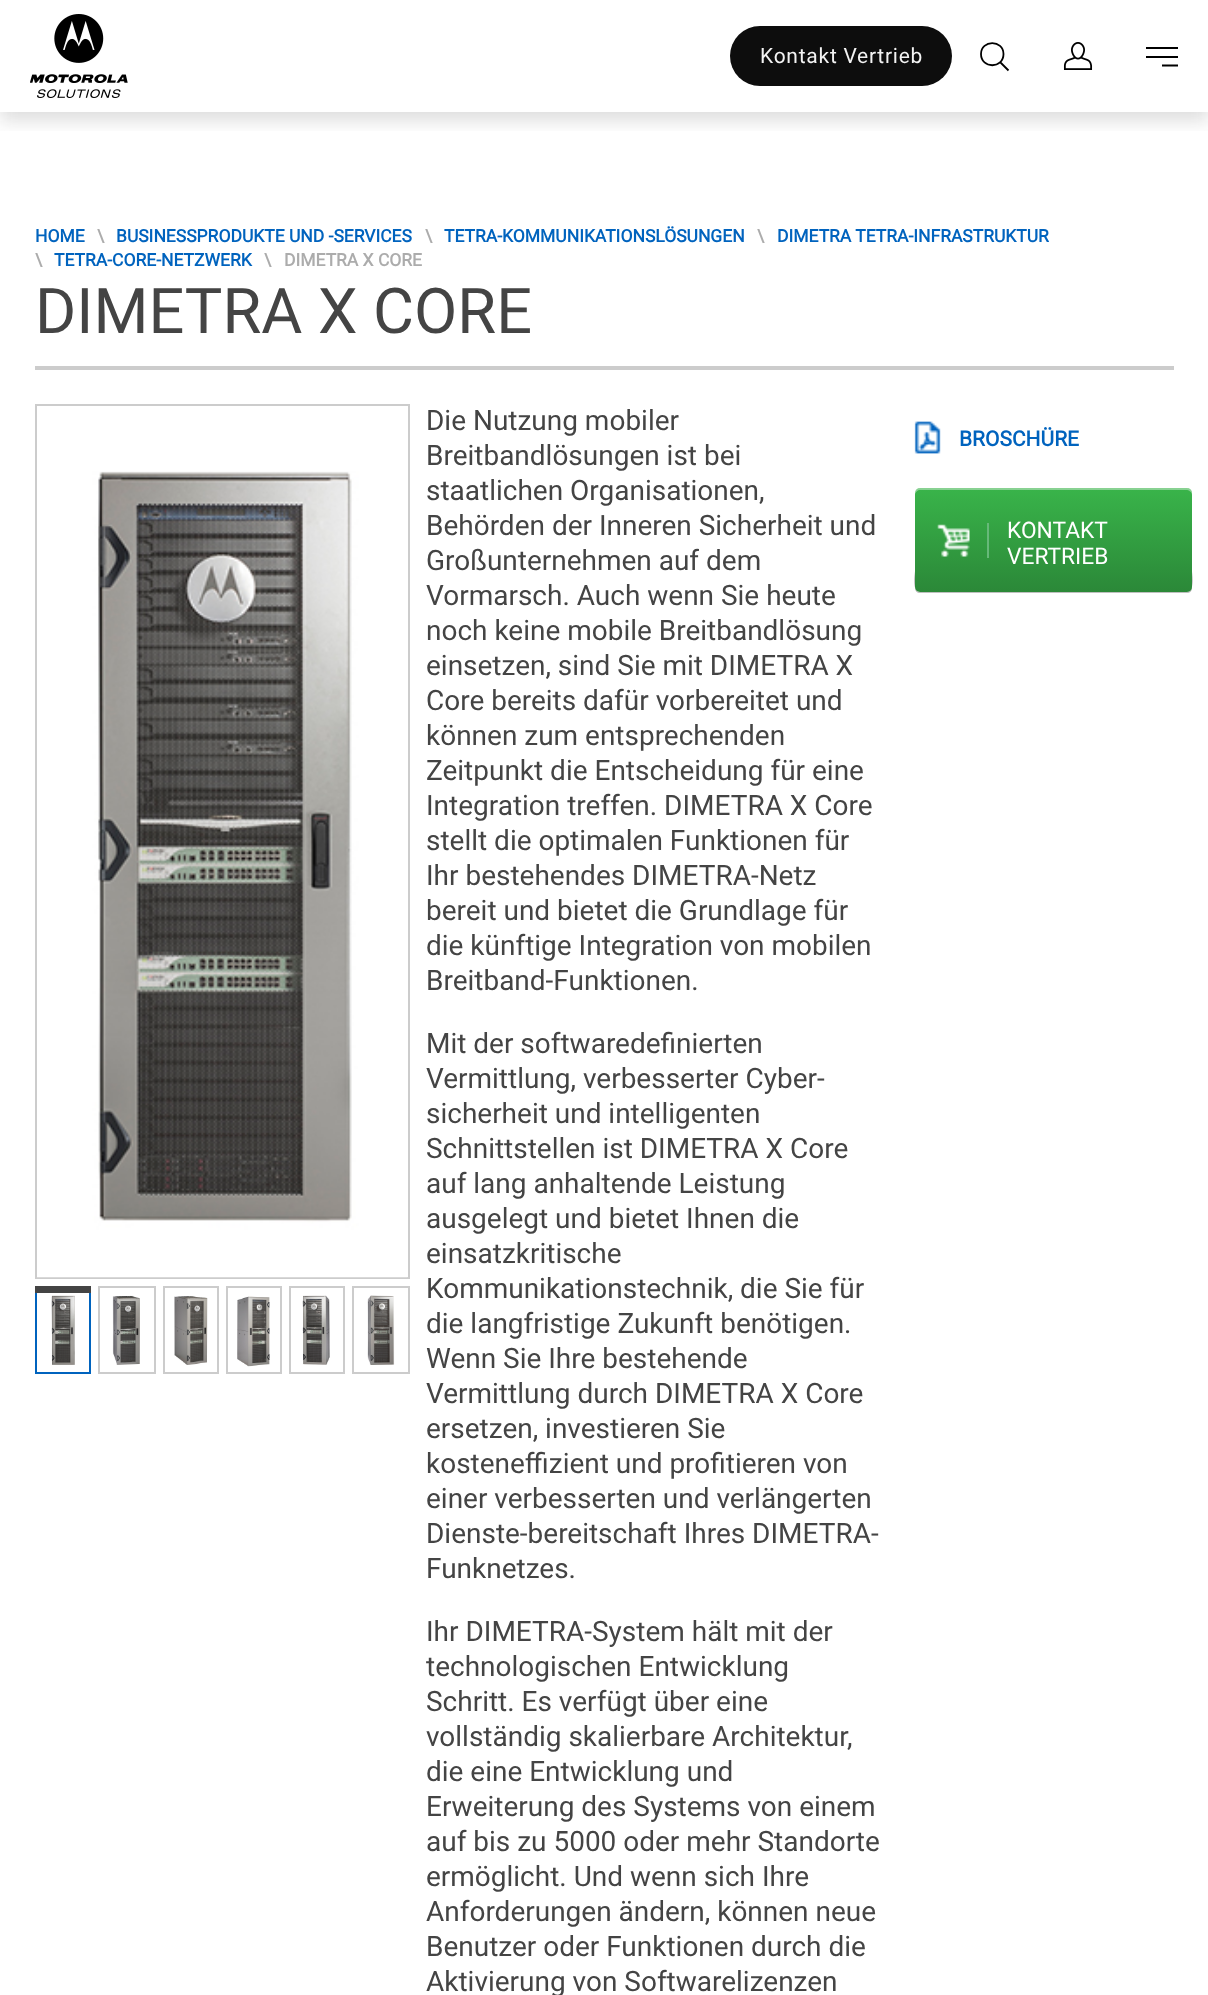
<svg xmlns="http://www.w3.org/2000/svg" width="1208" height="1995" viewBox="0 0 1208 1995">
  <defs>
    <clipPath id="clip1"><rect x="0" y="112" width="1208" height="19"/></clipPath>
    <linearGradient id="g1" gradientUnits="userSpaceOnUse" x1="1054" y1="488" x2="1054" y2="592"><stop offset="0" stop-color="rgb(57,180,74)"/><stop offset="1" stop-color="rgb(43,136,56)"/></linearGradient>
  </defs>
  <rect width="100%" height="100%" fill="rgb(255,255,255)"/>
  <g clip-path="url(#clip1)">
    <rect x="0" y="9" width="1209" height="112" fill="rgba(35,35,35,0.15)" filter="blur(9px)"/>
  </g>
  <image x="30" y="14" width="98" height="84" href="pic1.png"/>
  <rect x="730" y="26" width="222" height="60" rx="30" fill="rgb(13,13,13)"/>
  <text x="760" y="63" font-family="Roboto" font-size="21" letter-spacing="0.75" fill="rgb(243,243,243)">Kontakt Vertrieb</text>
  <path d="M1003.5 54C1003.5 69 981 69 981 54C981 39.5 1003.5 39.5 1003.5 54ZM1008.5 70.5L1000 62" fill="none" stroke="rgb(0,0,0)" stroke-width="1.8"/>
  <image x="1063" y="42" width="30" height="28" href="pic2.png"/>
  <path d="M1162 65.5H1178M1146 57H1178M1146 48H1178" fill="none" stroke="rgb(0,0,0)" stroke-width="1.8" stroke-linejoin="round"/>
  <rect x="35" y="366" width="1139" height="4" fill="rgb(204,204,204)"/>
  <text x="35" y="242" font-family="Roboto" font-size="17.5" font-weight="bold" fill="rgb(0,99,190)">HOME</text>
  <text x="97" y="242" font-family="Roboto" font-size="17.5" font-weight="bold" fill="rgb(172,172,172)">\</text>
  <text x="116" y="242" font-family="Roboto" font-size="17.5" font-weight="bold" fill="rgb(0,99,190)">BUSINESSPRODUKTE UND -SERVICES</text>
  <text x="425" y="242" font-family="Roboto" font-size="17.5" font-weight="bold" fill="rgb(172,172,172)">\</text>
  <text x="444" y="242" font-family="Roboto" font-size="17.5" font-weight="bold" fill="rgb(0,99,190)">TETRA-KOMMUNIKATIONSLÖSUNGEN</text>
  <text x="757" y="242" font-family="Roboto" font-size="17.5" font-weight="bold" fill="rgb(172,172,172)">\</text>
  <text x="777" y="242" font-family="Roboto" font-size="17.5" font-weight="bold" fill="rgb(0,99,190)">DIMETRA TETRA-INFRASTRUKTUR</text>
  <text x="35" y="266" font-family="Roboto" font-size="17.5" font-weight="bold" fill="rgb(172,172,172)">\</text>
  <text x="54" y="266" font-family="Roboto" font-size="17.5" font-weight="bold" fill="rgb(0,99,190)">TETRA-CORE-NETZWERK</text>
  <g font-family="Roboto" font-size="17.5" font-weight="bold" fill="rgb(172,172,172)">
    <text x="264" y="266">\</text>
    <text x="284" y="266">DIMETRA X CORE</text>
  </g>
  <text x="35" y="333" font-family="Roboto" font-size="63" fill="rgb(68,68,68)">DIMETRA X CORE</text>
  <rect x="36" y="405" width="373" height="873" fill="none" stroke="rgb(204,204,204)" stroke-width="2"/>
  <image x="37" y="471" width="371" height="807" href="pic3.png"/>
  <rect x="36" y="1287" width="54" height="86" fill="none" stroke="rgb(0,99,190)" stroke-width="2"/>
  <rect x="35" y="1286" width="56" height="7" fill="rgb(68,68,68)"/>
  <image x="51" y="1295" width="24" height="70" href="pic4.png"/>
  <rect x="99" y="1287" width="56" height="86" fill="none" stroke="rgb(204,204,204)" stroke-width="2"/>
  <image x="112" y="1295" width="28" height="70" href="pic5.png"/>
  <rect x="164" y="1287" width="54" height="86" fill="none" stroke="rgb(204,204,204)" stroke-width="2"/>
  <image x="174" y="1296" width="34" height="69" href="pic6.png"/>
  <rect x="227" y="1287" width="54" height="86" fill="none" stroke="rgb(204,204,204)" stroke-width="2"/>
  <image x="237" y="1296" width="33" height="71" href="pic7.png"/>
  <rect x="290" y="1287" width="54" height="86" fill="none" stroke="rgb(204,204,204)" stroke-width="2"/>
  <image x="302" y="1295" width="28" height="70" href="pic8.png"/>
  <rect x="353" y="1287" width="56" height="86" fill="none" stroke="rgb(204,204,204)" stroke-width="2"/>
  <image x="367" y="1295" width="28" height="70" href="pic9.png"/>
  <g font-family="Roboto" font-size="28" fill="rgb(68,68,68)">
    <text>
      <tspan x="426" y="430">Die Nutzung mobiler</tspan>
      <tspan x="426" y="465">Breitbandlösungen ist bei</tspan>
      <tspan x="426" y="500">staatlichen Organisationen,</tspan>
      <tspan x="426" y="535">Behörden der Inneren Sicherheit und</tspan>
      <tspan x="426" y="570">Großunternehmen auf dem</tspan>
      <tspan x="426" y="605">Vormarsch. Auch wenn Sie heute</tspan>
      <tspan x="426" y="640">noch keine mobile Breitbandlösung</tspan>
      <tspan x="426" y="675">einsetzen, sind Sie mit DIMETRA X</tspan>
      <tspan x="426" y="710">Core bereits dafür vorbereitet und</tspan>
      <tspan x="426" y="745">können zum entsprechenden</tspan>
      <tspan x="426" y="780">Zeitpunkt die Entscheidung für eine</tspan>
      <tspan x="426" y="815">Integration treffen. DIMETRA X Core</tspan>
      <tspan x="426" y="850">stellt die optimalen Funktionen für</tspan>
      <tspan x="426" y="885">Ihr bestehendes DIMETRA-Netz</tspan>
      <tspan x="426" y="920">bereit und bietet die Grundlage für</tspan>
      <tspan x="426" y="955">die künftige Integration von mobilen</tspan>
      <tspan x="426" y="990">Breitband-Funktionen.</tspan>
    </text>
    <text>
      <tspan x="426" y="1053">Mit der softwaredefinierten</tspan>
      <tspan x="426" y="1088">Vermittlung, verbesserter Cyber-</tspan>
      <tspan x="426" y="1123">sicherheit und intelligenten</tspan>
      <tspan x="426" y="1158">Schnittstellen ist DIMETRA X Core</tspan>
      <tspan x="426" y="1193">auf lang anhaltende Leistung</tspan>
      <tspan x="426" y="1228">ausgelegt und bietet Ihnen die</tspan>
      <tspan x="426" y="1263">einsatzkritische</tspan>
      <tspan x="426" y="1298">Kommunikationstechnik, die Sie für</tspan>
      <tspan x="426" y="1333">die langfristige Zukunft benötigen.</tspan>
      <tspan x="426" y="1368">Wenn Sie Ihre bestehende</tspan>
      <tspan x="426" y="1403">Vermittlung durch DIMETRA X Core</tspan>
      <tspan x="426" y="1438">ersetzen, investieren Sie</tspan>
      <tspan x="426" y="1473">kosteneffizient und profitieren von</tspan>
      <tspan x="426" y="1508">einer verbesserten und verlängerten</tspan>
      <tspan x="426" y="1543">Dienste-bereitschaft Ihres DIMETRA-</tspan>
      <tspan x="426" y="1578">Funknetzes.</tspan>
    </text>
    <text>
      <tspan x="426" y="1641">Ihr DIMETRA-System hält mit der</tspan>
      <tspan x="426" y="1676">technologischen Entwicklung</tspan>
      <tspan x="426" y="1711">Schritt. Es verfügt über eine</tspan>
      <tspan x="426" y="1746">vollständig skalierbare Architektur,</tspan>
      <tspan x="426" y="1781">die eine Entwicklung und</tspan>
      <tspan x="426" y="1816">Erweiterung des Systems von einem</tspan>
      <tspan x="426" y="1851">auf bis zu 5000 oder mehr Standorte</tspan>
      <tspan x="426" y="1886">ermöglicht. Und wenn sich Ihre</tspan>
      <tspan x="426" y="1921">Anforderungen ändern, können neue</tspan>
      <tspan x="426" y="1956">Benutzer oder Funktionen durch die</tspan>
      <tspan x="426" y="1991">Aktivierung von Softwarelizenzen</tspan>
    </text>
  </g>
  <image x="914" y="421" width="27" height="33" href="pic10.png"/>
  <text x="959" y="446" font-family="Roboto" font-size="21" font-weight="bold" fill="rgb(0,99,190)">BROSCHÜRE</text>
  <path d="M915 493V588C915 591 917 593 920 593H1187C1190 593 1192 591 1192 588V493V571C1192 573 1196 591 1186 592H920C911 591 915 573 915 571Z" fill="rgb(191,191,191)"/>
  <rect x="915" y="488" width="277" height="104" rx="5" fill="url(#g1)"/>
  <path d="M920 490H1186C1189 490 1192 492 1192 495V493C1192 490 1190 488 1187 488H920C917 488 915 490 915 493V495C915 492 918 490 920 490Z" fill="rgba(255,255,255,0.4)"/>
  <image x="937" y="524" width="33" height="33" href="pic11.png"/>
  <rect x="987" y="523" width="2" height="35" fill="rgb(103,185,121)"/>
  <g font-family="Roboto" font-size="22.75" fill="rgb(255,255,255)">
    <text>
      <tspan x="1007" y="538">KONTAKT</tspan>
      <tspan x="1007" y="564">VERTRIEB</tspan>
    </text>
  </g>
</svg>
